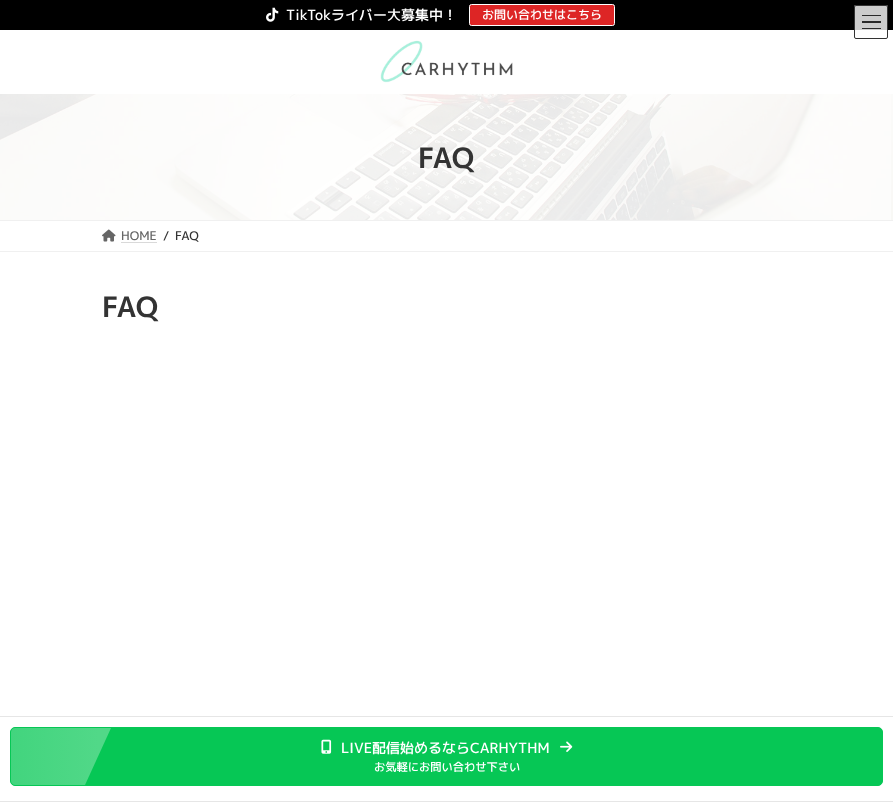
<svg xmlns="http://www.w3.org/2000/svg" width="893" height="802" viewBox="0 0 893 802">
  <defs>
    <linearGradient id="g1" gradientUnits="userSpaceOnUse" x1="-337" y1="756" x2="98" y2="756"><stop offset="0" stop-color="rgb(6,199,85)"/><stop offset="1" stop-color="rgb(81,216,136)"/></linearGradient>
  </defs>
  <rect width="100%" height="100%" fill="rgb(255,255,255)"/>
  <rect x="0" y="0" width="893" height="30" fill="rgb(0,0,0)"/>
  <image x="266" y="7" width="13" height="15" href="pic1.png"/>
  <text x="286" y="20" font-family="'M PLUS 1p'" font-size="14" font-weight="500" fill="rgb(255,255,255)">TikTokライバー大募集中！</text>
  <rect x="469.5" y="4.5" width="145" height="21" rx="2" fill="rgb(221,37,37)" stroke="rgb(255,255,255)"/>
  <text x="482" y="19" font-family="'M PLUS 1p'" font-size="12" font-weight="500" fill="rgb(255,255,255)">お問い合わせはこちら</text>
  <image x="380" y="40" width="133" height="43" href="pic2.png"/>
  <rect x="854" y="5" width="34" height="34" rx="2" fill="rgba(255,255,255,0.8)"/>
  <rect x="862" y="15" width="19" height="1" fill="rgb(41,41,41)"/>
  <rect x="862" y="21" width="19" height="2" fill="rgb(41,41,41)"/>
  <rect x="862" y="28" width="19" height="1" fill="rgb(41,41,41)"/>
  <rect x="854.5" y="5.5" width="33" height="33" rx="1.5" fill="none" stroke="rgb(51,51,51)"/>
  <image x="0" y="94" width="893" height="126" href="pic3.png"/>
  <text x="418" y="168" font-family="'M PLUS 1p'" font-size="28" font-weight="bold" fill="rgb(51,51,51)">FAQ</text>
  <rect x="0" y="220" width="893" height="1" fill="rgb(240,240,240)"/>
  <rect x="0" y="251" width="893" height="1" fill="rgb(240,240,240)"/>
  <image x="102" y="229" width="14" height="13" href="pic4.png"/>
  <text x="121" y="240" font-family="'M PLUS 1p'" font-size="12" font-weight="500" fill="rgb(102,102,102)">HOME</text>
  <path d="M121.5 242.5H157" fill="none" stroke="rgb(179,179,179)" stroke-dasharray="1 1"/>
  <g font-family="'M PLUS 1p'" font-size="12" font-weight="500" fill="rgb(51,51,51)">
    <text x="163" y="240">/</text>
    <text x="175" y="240">FAQ</text>
  </g>
  <text x="102" y="317" font-family="'M PLUS 1p'" font-size="28" font-weight="bold" fill="rgb(51,51,51)">FAQ</text>
  <rect x="0" y="716" width="893" height="1" fill="rgb(230,230,230)"/>
  <rect x="0" y="801" width="893" height="1" fill="rgb(230,230,230)"/>
  <rect x="10.5" y="727.5" width="872" height="58" rx="4.5" fill="rgb(6,199,85)" stroke="rgb(6,199,85)"/>
  <path d="M15 728C13 728 11 730 11 732V781C11 783 13 785 15 785H85L111 728Z" fill="url(#g1)"/>
  <image x="321" y="739" width="11" height="15" href="pic5.png"/>
  <text x="341" y="753" font-family="'M PLUS 1p'" font-size="14" font-weight="500" fill="rgb(255,255,255)">LIVE配信始めるならCARHYTHM</text>
  <image x="560" y="741" width="13" height="11" href="pic6.png"/>
  <text x="374" y="771" font-family="'M PLUS 1p'" font-size="11.25" font-weight="500" fill="rgb(255,255,255)">お気軽にお問い合わせ下さい</text>
</svg>
